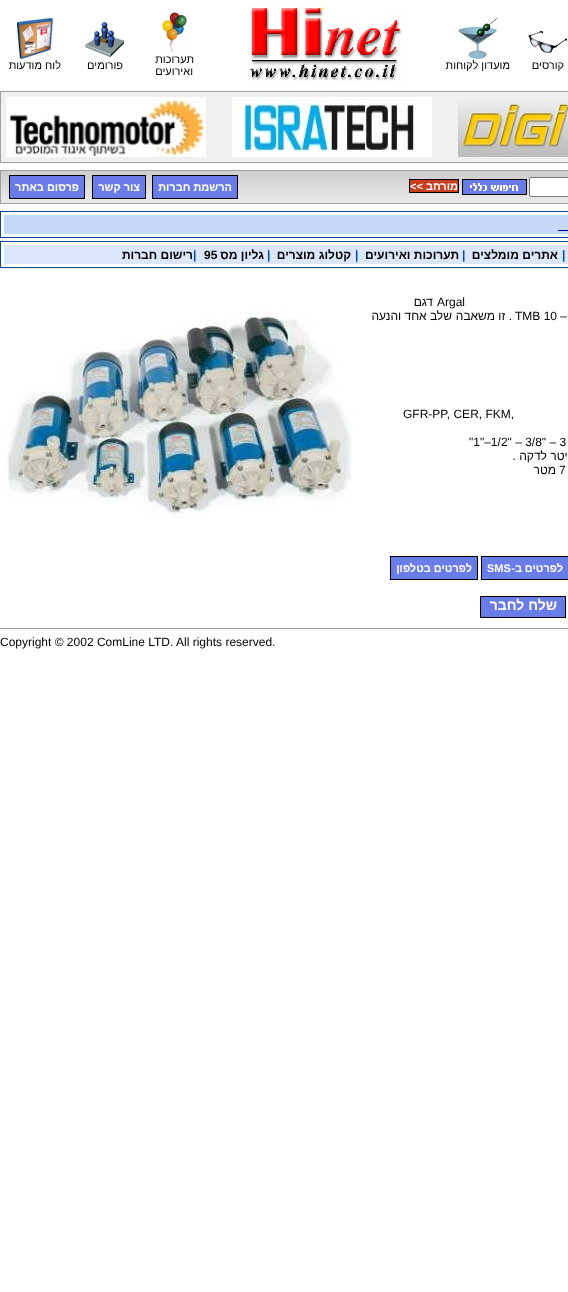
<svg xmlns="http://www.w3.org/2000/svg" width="568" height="1292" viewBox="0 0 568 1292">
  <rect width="100%" height="100%" fill="rgb(255,255,255)"/>
  <image x="528" y="31" width="39" height="22" href="pic1.png"/>
  <text x="564" y="69" font-family="Liberation Sans" font-size="11" direction="rtl" fill="rgb(0,0,0)">קורסים</text>
  <image x="458" y="18" width="39" height="41" href="pic2.png"/>
  <text x="510" y="69" font-family="Liberation Sans" font-size="11" direction="rtl" fill="rgb(0,0,0)">מועדון לקוחות</text>
  <image x="246" y="5" width="160" height="79" href="pic3.png"/>
  <image x="160" y="12" width="30" height="41" href="pic4.png"/>
  <g font-family="Liberation Sans" font-size="11" direction="rtl" fill="rgb(0,0,0)">
    <text x="194" y="63">תערוכות</text>
    <text x="193" y="75">ואירועים</text>
  </g>
  <image x="85" y="22" width="39" height="35" href="pic5.png"/>
  <text x="123" y="69" font-family="Liberation Sans" font-size="11" direction="rtl" fill="rgb(0,0,0)">פורומים</text>
  <image x="17" y="18" width="36" height="41" href="pic6.png"/>
  <text x="61" y="69" font-family="Liberation Sans" font-size="11" direction="rtl" fill="rgb(0,0,0)">לוח מודעות</text>
  <rect x="0.5" y="91.5" width="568" height="71" fill="rgb(240,240,240)" stroke="rgb(160,160,160)"/>
  <image x="458" y="97" width="110" height="60" href="pic7.png"/>
  <image x="232" y="97" width="200" height="60" href="pic8.png"/>
  <image x="6" y="97" width="200" height="60" href="pic9.png"/>
  <image x="1" y="171" width="567" height="32" href="pic10.png"/>
  <rect x="0.5" y="170.5" width="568" height="33" fill="none" stroke="rgb(160,160,160)"/>
  <rect x="529.5" y="177.5" width="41" height="19" rx="1.5" fill="rgb(255,255,255)" stroke="rgb(118,118,118)"/>
  <image x="462" y="179" width="65" height="16" href="pic11.png"/>
  <rect x="410" y="180" width="48" height="12" fill="rgb(202,63,31)"/>
  <text x="458" y="190" font-family="Liberation Sans" font-size="11" font-weight="bold" direction="rtl" fill="rgb(255,255,255)">מורחב</text>
  <rect x="409" y="179" width="50" height="1" fill="rgb(0,0,0)"/>
  <rect x="458" y="179" width="1" height="14" fill="rgb(0,0,0)"/>
  <rect x="426" y="192" width="33" height="1" fill="rgb(0,0,0)"/>
  <text x="410" y="190" font-family="Liberation Sans" font-size="11" font-weight="bold" fill="rgb(255,255,255)">&lt;&lt;</text>
  <rect x="409" y="192" width="17" height="1" fill="rgb(0,0,0)"/>
  <rect x="409" y="179" width="1" height="14" fill="rgb(0,0,0)"/>
  <rect x="152.5" y="175.5" width="85" height="23" fill="rgb(106,124,232)" stroke="rgb(0,0,0)"/>
  <text x="232" y="191" font-family="Liberation Sans" font-size="11" font-weight="bold" direction="rtl" fill="rgb(255,255,255)">הרשמת חברות</text>
  <rect x="92.5" y="175.5" width="53" height="23" fill="rgb(106,124,232)" stroke="rgb(0,0,0)"/>
  <text x="140" y="191" font-family="Liberation Sans" font-size="11" font-weight="bold" direction="rtl" fill="rgb(255,255,255)">צור קשר</text>
  <rect x="9.5" y="175.5" width="75" height="23" fill="rgb(106,124,232)" stroke="rgb(0,0,0)"/>
  <text x="79" y="191" font-family="Liberation Sans" font-size="11" font-weight="bold" direction="rtl" fill="rgb(255,255,255)">פרסום באתר</text>
  <rect x="0.5" y="211.5" width="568" height="26" fill="none" stroke="rgb(0,76,153)"/>
  <rect x="4" y="215" width="564" height="19" fill="rgb(198,216,250)"/>
  <rect x="558" y="230" width="10" height="1" fill="rgb(0,0,140)"/>
  <rect x="0.5" y="241.5" width="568" height="26" fill="none" stroke="rgb(0,76,153)"/>
  <rect x="4" y="245" width="564" height="19" fill="rgb(219,230,251)"/>
  <text x="562" y="259" font-family="Liberation Sans" font-size="12" font-weight="bold" fill="rgb(0,76,153)">|</text>
  <text x="558" y="259" font-family="Liberation Sans" font-size="12" font-weight="bold" direction="rtl" fill="rgb(0,0,0)">אתרים מומלצים</text>
  <text x="462" y="259" font-family="Liberation Sans" font-size="12" font-weight="bold" fill="rgb(0,76,153)">|</text>
  <text x="459" y="259" font-family="Liberation Sans" font-size="12" font-weight="bold" direction="rtl" fill="rgb(0,0,0)">תערוכות ואירועים</text>
  <text x="355" y="259" font-family="Liberation Sans" font-size="12" font-weight="bold" fill="rgb(0,76,153)">|</text>
  <text x="351" y="259" font-family="Liberation Sans" font-size="12" font-weight="bold" direction="rtl" fill="rgb(0,0,0)">קטלוג מוצרים</text>
  <text x="267" y="259" font-family="Liberation Sans" font-size="12" font-weight="bold" fill="rgb(0,76,153)">|</text>
  <text x="264" y="259" font-family="Liberation Sans" font-size="12" font-weight="bold" direction="rtl" fill="rgb(0,0,0)">גליון מס</text>
  <text x="204" y="259" font-family="Liberation Sans" font-size="12" font-weight="bold" fill="rgb(0,0,0)">95</text>
  <text x="193" y="259" font-family="Liberation Sans" font-size="12" font-weight="bold" fill="rgb(0,76,153)">|</text>
  <text x="193" y="259" font-family="Liberation Sans" font-size="12" font-weight="bold" direction="rtl" fill="rgb(0,0,0)">רישום חברות</text>
  <text x="437" y="306" font-family="Liberation Sans" font-size="12" fill="rgb(0,0,0)">Argal</text>
  <text x="433" y="306" font-family="Liberation Sans" font-size="12" direction="rtl" fill="rgb(0,0,0)">דגם</text>
  <text x="515" y="320" font-family="Liberation Sans" font-size="12" fill="rgb(0,0,0)">TMB 10 –</text>
  <g font-family="Liberation Sans" font-size="12" direction="rtl" fill="rgb(0,0,0)">
    <text x="512" y="320">. זו משאבה</text>
    <text x="452" y="320">שלב אחד והנעה</text>
  </g>
  <image x="2" y="311" width="351" height="207" href="pic12.png"/>
  <g font-family="Liberation Sans" font-size="12" fill="rgb(0,0,0)">
    <text x="403" y="418">GFR-PP, CER, FKM,</text>
    <text x="469" y="446">"1"–1/2" – 3/8" – 3</text>
  </g>
  <text x="574" y="460" font-family="Liberation Sans" font-size="12" direction="rtl" fill="rgb(0,0,0)">ליטר לדקה .</text>
  <text x="559" y="474" font-family="Liberation Sans" font-size="12" fill="rgb(0,0,0)">7</text>
  <text x="556" y="474" font-family="Liberation Sans" font-size="12" direction="rtl" fill="rgb(0,0,0)">מטר</text>
  <rect x="482" y="557" width="86" height="22" fill="rgb(106,124,232)"/>
  <text x="563" y="572" font-family="Liberation Sans" font-size="11" font-weight="bold" direction="rtl" fill="rgb(255,255,255)">לפרטים</text>
  <rect x="481" y="556" width="87" height="1" fill="rgb(0,0,0)"/>
  <text x="522" y="572" font-family="Liberation Sans" font-size="11" font-weight="bold" direction="rtl" fill="rgb(255,255,255)">ב-</text>
  <text x="487" y="572" font-family="Liberation Sans" font-size="11" font-weight="bold" fill="rgb(255,255,255)">SMS</text>
  <rect x="481" y="579" width="87" height="1" fill="rgb(0,0,0)"/>
  <rect x="481" y="556" width="1" height="24" fill="rgb(0,0,0)"/>
  <rect x="390.5" y="556.5" width="87" height="23" fill="rgb(106,124,232)" stroke="rgb(0,0,0)"/>
  <text x="472" y="572" font-family="Liberation Sans" font-size="11" font-weight="bold" direction="rtl" fill="rgb(255,255,255)">לפרטים בטלפון</text>
  <rect x="480.5" y="596.5" width="85" height="21" fill="rgb(106,124,232)" stroke="rgb(0,0,0)"/>
  <text x="557" y="610" font-family="Liberation Sans" font-size="14" font-weight="bold" direction="rtl" fill="rgb(255,255,255)">שלח לחבר</text>
  <rect x="0" y="628" width="568" height="1" fill="rgb(159,159,159)"/>
  <text x="0" y="646" font-family="Liberation Sans" font-size="12" fill="rgb(0,0,0)">Copyright © 2002 ComLine LTD. All rights reserved.</text>
</svg>
